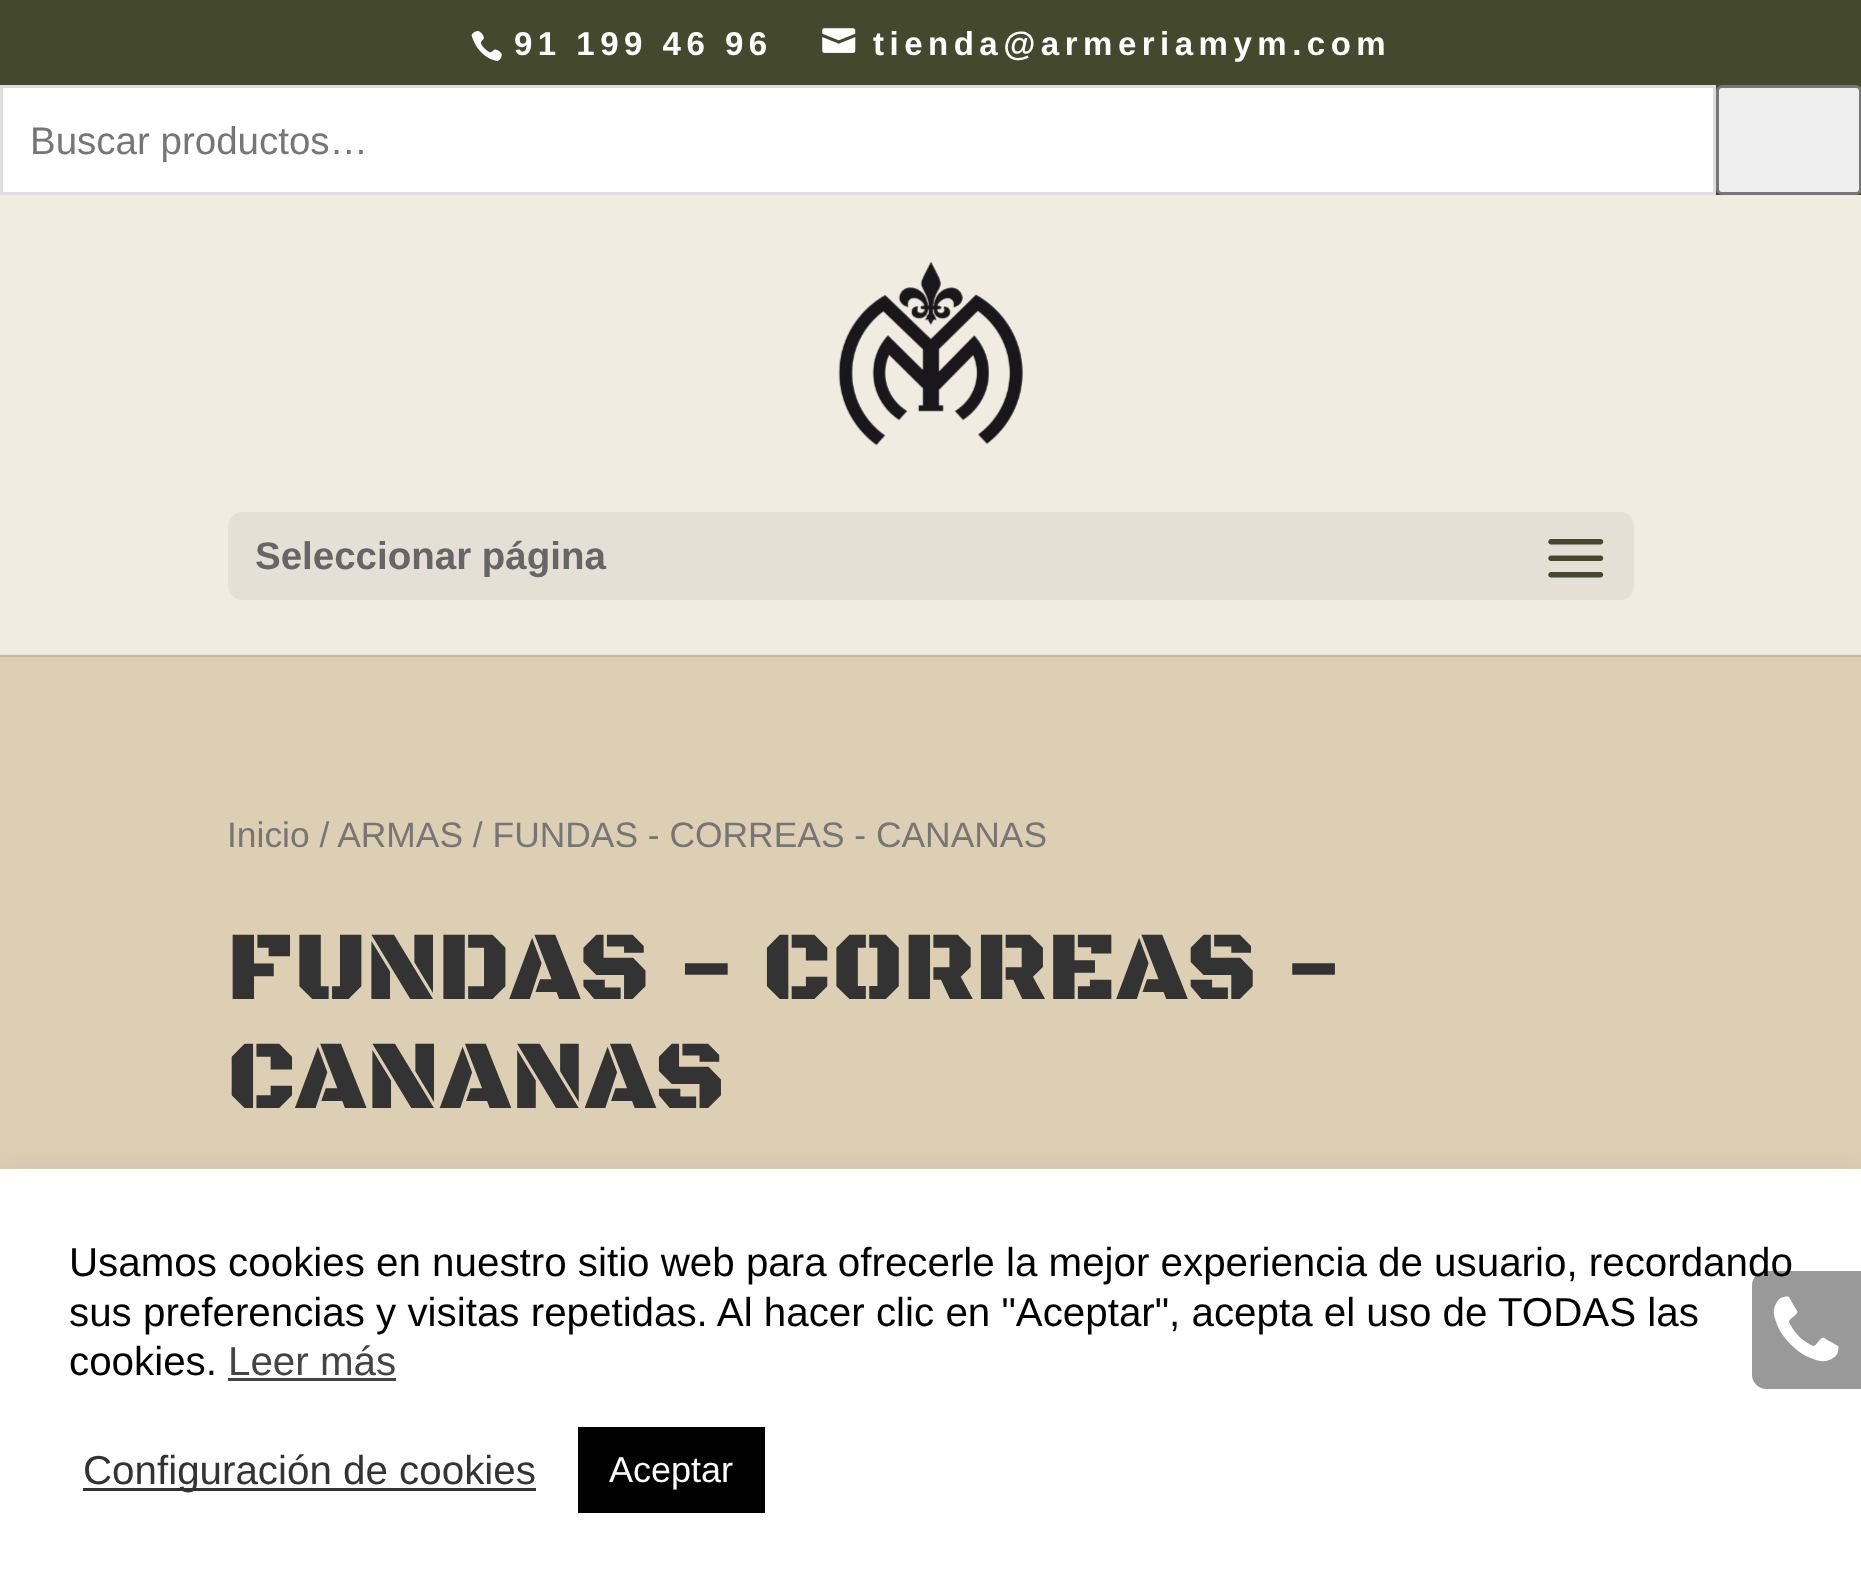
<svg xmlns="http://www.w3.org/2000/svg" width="1861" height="1593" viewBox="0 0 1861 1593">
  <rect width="100%" height="100%" fill="rgb(221,207,179)"/>
  <rect x="0" y="0" width="1861" height="195" fill="rgb(68,72,45)"/>
  <image x="471" y="31" width="31" height="31" href="pic1.png"/>
  <text x="514" y="55" font-family="Liberation Sans" font-size="33" font-weight="bold" letter-spacing="5.5" fill="rgb(255,255,255)">91 199 46 96</text>
  <image x="822" y="28" width="34" height="25" href="pic2.png"/>
  <text x="873" y="55" font-family="Liberation Sans" font-size="33" font-weight="bold" letter-spacing="5.5" fill="rgb(255,255,255)">tienda@armeriamym.com</text>
  <rect x="1.5" y="86.5" width="1713" height="107" fill="rgb(255,255,255)" stroke="rgb(221,221,221)" stroke-width="3"/>
  <text x="30" y="154" font-family="Liberation Sans" font-size="38.5" fill="rgb(118,118,118)">Buscar productos…</text>
  <rect x="1717.5" y="86.5" width="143" height="107" rx="4.5" fill="rgb(239,239,239)" stroke="rgb(118,118,118)" stroke-width="3"/>
  <path d="M0 654V657H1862V198V654Z" fill="rgb(199,186,161)"/>
  <rect x="0" y="195" width="1861" height="460" fill="rgba(255,255,255,0.6)"/>
  <image x="838" y="261" width="185" height="185" href="pic3.png"/>
  <rect x="228" y="512" width="1406" height="88" rx="14" fill="rgb(229,224,213)"/>
  <text x="255" y="569" font-family="Liberation Sans" font-size="38.5" font-weight="bold" fill="rgb(102,102,102)">Seleccionar página</text>
  <image x="1548" y="539" width="56" height="39" href="pic4.png"/>
  <text x="227" y="847" font-family="Liberation Sans" font-size="35.4" fill="rgb(118,118,118)">Inicio / ARMAS / FUNDAS - CORREAS - CANANAS</text>
  <g font-family="Black Ops One" font-size="99" font-weight="900" fill="rgb(51,51,51)">
    <text>
      <tspan x="227" y="999">FUNDAS - CORREAS -</tspan>
      <tspan x="227" y="1108">CANANAS</tspan>
    </text>
  </g>
  <rect x="0" y="1166" width="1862" height="426" fill="rgba(172,171,171,0.3)" filter="blur(14px)"/>
  <rect x="0" y="1169" width="1861" height="424" fill="rgb(255,255,255)"/>
  <text x="69" y="1276" font-family="Liberation Sans" font-size="40.35" fill="rgb(0,0,0)">Usamos cookies en nuestro sitio web para ofrecerle la mejor experiencia de usuario, recordando</text>
  <path d="M1766 1271H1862V1389H1766C1758.5 1389 1752 1382.5 1752 1375V1285C1752 1277.5 1758.5 1271 1766 1271Z" fill="rgba(0,0,0,0.4)"/>
  <image x="1773" y="1296" width="66" height="66" href="pic5.png"/>
  <g font-family="Liberation Sans" font-size="40.35" fill="rgb(0,0,0)">
    <text>
      <tspan x="69" y="1326">sus preferencias y visitas repetidas. Al hacer clic en "Aceptar", acepta el uso de TODAS las</tspan>
      <tspan x="69" y="1375">cookies.</tspan>
    </text>
  </g>
  <text x="228" y="1375" font-family="Liberation Sans" font-size="40.35" fill="rgb(68,68,68)">Leer más</text>
  <rect x="228" y="1378" width="168" height="3" fill="rgb(68,68,68)"/>
  <rect x="83" y="1488" width="453" height="3" fill="rgb(51,51,51)"/>
  <text x="83" y="1484" font-family="Liberation Sans" font-size="40.35" fill="rgb(51,51,51)">Configuración de cookies</text>
  <rect x="578" y="1427" width="187" height="86" fill="rgb(0,0,0)"/>
  <text x="609" y="1482" font-family="Liberation Sans" font-size="36" fill="rgb(255,255,255)">Aceptar</text>
</svg>
